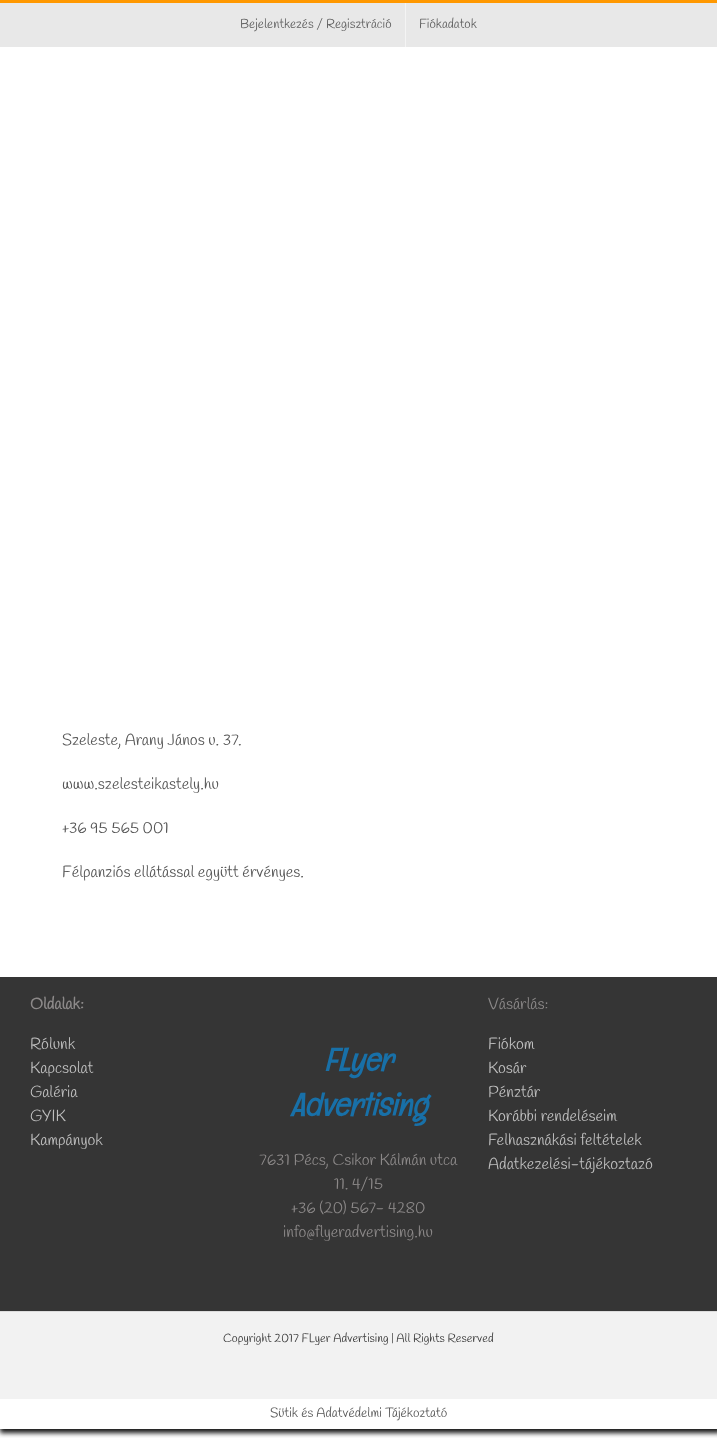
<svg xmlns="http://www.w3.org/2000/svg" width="717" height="1449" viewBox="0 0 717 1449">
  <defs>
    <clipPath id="clip1"><rect x="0" y="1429" width="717" height="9"/></clipPath>
  </defs>
  <rect width="100%" height="100%" fill="rgb(255,255,255)"/>
  <rect x="0" y="3" width="717" height="44" fill="rgb(232,232,232)"/>
  <rect x="0" y="0" width="717" height="3" fill="rgb(255,152,0)"/>
  <text x="240" y="28" font-family="Handlee" font-size="13" fill="rgb(94,94,94)">Bejelentkezés / Regisztráció</text>
  <rect x="405" y="3" width="1" height="44" fill="rgb(244,244,244)"/>
  <text x="419" y="28" font-family="Handlee" font-size="13" fill="rgb(94,94,94)">Fiókadatok</text>
  <g font-family="Handlee" font-size="16" fill="rgb(86,86,86)">
    <text x="62" y="745">Szeleste, Arany János u. 37.</text>
    <text x="62" y="789">www.szelesteikastely.hu</text>
    <text x="62" y="833">+36 95 565 001</text>
    <text x="62" y="877">Félpanziós ellátással együtt érvényes.</text>
  </g>
  <rect x="0" y="977" width="717" height="334" fill="rgb(53,53,53)"/>
  <text x="30" y="1009" font-family="Handlee" font-size="16" font-weight="bold" fill="rgb(140,137,137)">Oldalak:</text>
  <g font-family="Handlee" font-size="16" fill="rgb(191,191,191)">
    <text>
      <tspan x="30" y="1049">Rólunk</tspan>
      <tspan x="30" y="1073">Kapcsolat</tspan>
      <tspan x="30" y="1097">Galéria</tspan>
      <tspan x="30" y="1121">GYIK</tspan>
      <tspan x="30" y="1145">Kampányok</tspan>
    </text>
  </g>
  <g font-family="Englebert" font-size="32" font-weight="bold" font-style="italic" fill="rgb(24,112,168)">
    <text x="324" y="1071">FLyer</text>
    <text x="290" y="1116">Advertising</text>
  </g>
  <g font-family="Handlee" font-size="16" fill="rgb(140,137,137)">
    <text x="259" y="1165">7631 Pécs, Csikor Kálmán utca</text>
    <text x="334" y="1189">11. 4/15</text>
    <text x="291" y="1213">+36 (20) 567- 4280</text>
    <text x="283" y="1237">info@flyeradvertising.hu</text>
    <text x="488" y="1009">Vásárlás:</text>
  </g>
  <g font-family="Handlee" font-size="16" fill="rgb(191,191,191)">
    <text>
      <tspan x="488" y="1049">Fiókom</tspan>
      <tspan x="488" y="1073">Kosár</tspan>
      <tspan x="488" y="1097">Pénztár</tspan>
      <tspan x="488" y="1121">Korábbi rendeléseim</tspan>
      <tspan x="488" y="1145">Felhasznákási feltételek</tspan>
      <tspan x="488" y="1169">Adatkezelési-tájékoztazó</tspan>
    </text>
  </g>
  <g clip-path="url(#clip1)">
    <rect x="0" y="1399" width="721" height="34" fill="rgb(22,22,22)" filter="blur(2.5px)"/>
  </g>
  <rect x="0" y="1312" width="717" height="87" fill="rgb(242,242,242)"/>
  <rect x="0" y="1311" width="717" height="1" fill="rgb(220,220,220)"/>
  <text x="223" y="1342" font-family="Handlee" font-size="12" fill="rgb(51,51,51)">Copyright 2017 FLyer Advertising | All Rights Reserved</text>
  <text x="270" y="1417" font-family="Handlee" font-size="13.3" fill="rgb(86,86,86)">Sütik és Adatvédelmi Tájékoztató</text>
</svg>
